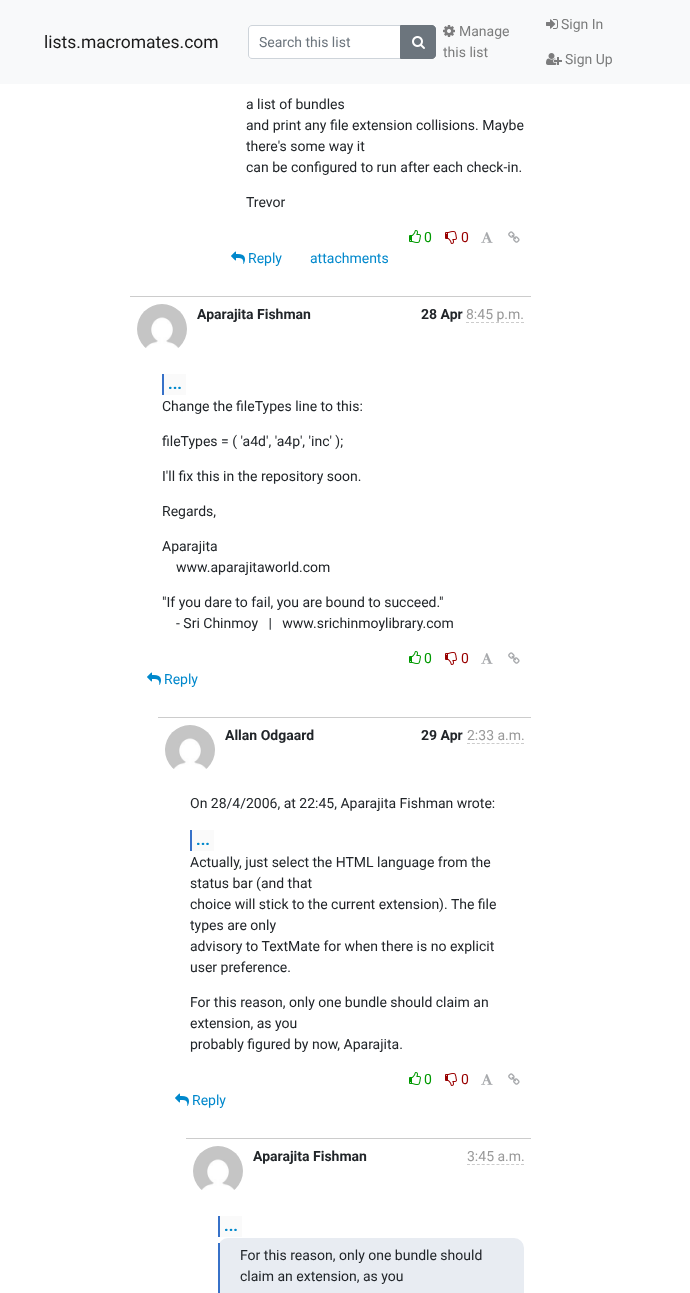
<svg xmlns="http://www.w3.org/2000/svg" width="690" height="1293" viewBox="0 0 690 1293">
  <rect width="100%" height="100%" fill="rgb(255,255,255)"/>
  <rect x="0" y="0" width="690" height="84" fill="rgb(248,249,250)"/>
  <text x="44" y="48" font-family="Roboto" font-size="17.5" fill="rgb(25,25,25)">lists.macromates.com</text>
  <path d="M251.5 26H400V58H251.5C250 58 249 57 249 55.5V28.5C249 27 250 26 251.5 26Z" fill="rgb(255,255,255)"/>
  <path d="M252 25.5H400.5V58.5H252C250 58.5 248.5 57 248.5 55V29C248.5 27 250 25.5 252 25.5Z" fill="none" stroke="rgb(206,212,218)"/>
  <text x="259" y="47" font-family="Roboto" font-size="14" fill="rgb(108,117,125)">Search this list</text>
  <path d="M400.5 25.5H432C434 25.5 435.5 27 435.5 29V55C435.5 57 434 58.5 432 58.5H400.5Z" fill="rgb(108,117,125)" stroke="rgb(108,117,125)"/>
  <image x="412" y="36" width="13" height="13" href="pic1.png"/>
  <image x="443" y="25" width="12" height="12" href="pic2.png"/>
  <g font-family="Roboto" font-size="14" fill="rgb(124,125,125)">
    <text x="459" y="36">Manage</text>
    <text x="443" y="57">this list</text>
  </g>
  <image x="546" y="19" width="12" height="10" href="pic3.png"/>
  <text x="561" y="29" font-family="Roboto" font-size="14" fill="rgb(124,125,125)">Sign In</text>
  <image x="546" y="53" width="16" height="12" href="pic4.png"/>
  <text x="565" y="64" font-family="Roboto" font-size="14" fill="rgb(124,125,125)">Sign Up</text>
  <g font-family="Roboto" font-size="14" fill="rgb(33,37,41)">
    <text>
      <tspan x="246" y="109">a list of bundles</tspan>
      <tspan x="246" y="130">and print any file extension collisions. Maybe</tspan>
      <tspan x="246" y="151">there's some way it</tspan>
      <tspan x="246" y="172">can be configured to run after each check-in.</tspan>
    </text>
    <text x="246" y="207">Trevor</text>
  </g>
  <image x="409" y="230" width="12" height="13" href="pic5.png"/>
  <text x="424" y="242" font-family="Roboto" font-size="14" fill="rgb(0,153,0)">0</text>
  <image x="445" y="231" width="12" height="13" href="pic6.png"/>
  <text x="461" y="242" font-family="Roboto" font-size="14" fill="rgb(153,0,0)">0</text>
  <image x="481" y="232" width="12" height="11" href="pic7.png"/>
  <image x="508" y="231" width="12" height="12" href="pic8.png"/>
  <image x="231" y="251" width="14" height="13" href="pic9.png"/>
  <g font-family="Roboto" font-size="14" fill="rgb(0,136,204)">
    <text x="248" y="263">Reply</text>
    <text x="310" y="263">attachments</text>
  </g>
  <rect x="130" y="296" width="401" height="1" fill="rgb(204,204,204)"/>
  <image x="137" y="304" width="50" height="44" href="pic10.png"/>
  <g font-family="Roboto" font-size="14" font-weight="bold" fill="rgb(33,37,41)">
    <text x="197" y="319">Aparajita Fishman</text>
    <text x="421" y="319">28 Apr</text>
  </g>
  <text x="466" y="319" font-family="Roboto" font-size="14" fill="rgb(153,153,153)">8:45 p.m.</text>
  <path d="M466 322.5H524" fill="none" stroke="rgb(204,204,204)" stroke-dasharray="3 2"/>
  <rect x="164" y="374" width="22" height="21" fill="rgb(250,250,250)"/>
  <text x="168" y="389" font-family="Roboto" font-size="16" font-weight="bold" fill="rgb(0,136,204)">...</text>
  <rect x="162" y="374" width="2" height="21" fill="rgb(55,113,200)"/>
  <g font-family="Roboto" font-size="14" fill="rgb(33,37,41)">
    <text x="162" y="411">Change the fileTypes line to this:</text>
    <text x="162" y="446">fileTypes = ( 'a4d', 'a4p', 'inc' );</text>
    <text x="162" y="481">I'll fix this in the repository soon.</text>
    <text x="162" y="516">Regards,</text>
    <text x="162" y="551">Aparajita</text>
    <text x="176" y="572">www.aparajitaworld.com</text>
    <text x="162" y="607">"If you dare to fail, you are bound to succeed."</text>
    <text x="176" y="628" xml:space="preserve">- Sri Chinmoy   |   www.srichinmoylibrary.com</text>
  </g>
  <image x="409" y="651" width="12" height="13" href="pic5.png"/>
  <text x="424" y="663" font-family="Roboto" font-size="14" fill="rgb(0,153,0)">0</text>
  <image x="445" y="652" width="12" height="13" href="pic6.png"/>
  <text x="461" y="663" font-family="Roboto" font-size="14" fill="rgb(153,0,0)">0</text>
  <image x="481" y="653" width="12" height="11" href="pic7.png"/>
  <image x="508" y="652" width="12" height="12" href="pic8.png"/>
  <image x="147" y="672" width="14" height="13" href="pic9.png"/>
  <text x="164" y="684" font-family="Roboto" font-size="14" fill="rgb(0,136,204)">Reply</text>
  <rect x="158" y="717" width="373" height="1" fill="rgb(204,204,204)"/>
  <image x="165" y="725" width="50" height="44" href="pic11.png"/>
  <g font-family="Roboto" font-size="14" font-weight="bold" fill="rgb(33,37,41)">
    <text x="225" y="740">Allan Odgaard</text>
    <text x="421" y="740">29 Apr</text>
  </g>
  <text x="467" y="740" font-family="Roboto" font-size="14" fill="rgb(153,153,153)">2:33 a.m.</text>
  <path d="M467 743.5H524" fill="none" stroke="rgb(204,204,204)" stroke-dasharray="3 1.91"/>
  <text x="190" y="808" font-family="Roboto" font-size="14" fill="rgb(33,37,41)">On 28/4/2006, at 22:45, Aparajita Fishman wrote:</text>
  <rect x="192" y="830" width="22" height="21" fill="rgb(250,250,250)"/>
  <text x="196" y="845" font-family="Roboto" font-size="16" font-weight="bold" fill="rgb(0,136,204)">...</text>
  <rect x="190" y="830" width="2" height="21" fill="rgb(55,113,200)"/>
  <g font-family="Roboto" font-size="14" fill="rgb(33,37,41)">
    <text>
      <tspan x="190" y="867">Actually, just select the HTML language from the</tspan>
      <tspan x="190" y="888">status bar (and that</tspan>
      <tspan x="190" y="909">choice will stick to the current extension). The file</tspan>
      <tspan x="190" y="930">types are only</tspan>
      <tspan x="190" y="951">advisory to TextMate for when there is no explicit</tspan>
      <tspan x="190" y="972">user preference.</tspan>
    </text>
    <text>
      <tspan x="190" y="1007">For this reason, only one bundle should claim an</tspan>
      <tspan x="190" y="1028">extension, as you</tspan>
      <tspan x="190" y="1049">probably figured by now, Aparajita.</tspan>
    </text>
  </g>
  <image x="409" y="1072" width="12" height="13" href="pic5.png"/>
  <text x="424" y="1084" font-family="Roboto" font-size="14" fill="rgb(0,153,0)">0</text>
  <image x="445" y="1073" width="12" height="13" href="pic6.png"/>
  <text x="461" y="1084" font-family="Roboto" font-size="14" fill="rgb(153,0,0)">0</text>
  <image x="481" y="1074" width="12" height="11" href="pic7.png"/>
  <image x="508" y="1073" width="12" height="12" href="pic8.png"/>
  <image x="175" y="1093" width="14" height="13" href="pic9.png"/>
  <text x="192" y="1105" font-family="Roboto" font-size="14" fill="rgb(0,136,204)">Reply</text>
  <rect x="186" y="1138" width="345" height="1" fill="rgb(204,204,204)"/>
  <image x="193" y="1146" width="50" height="44" href="pic12.png"/>
  <text x="253" y="1161" font-family="Roboto" font-size="14" font-weight="bold" fill="rgb(33,37,41)">Aparajita Fishman</text>
  <text x="467" y="1161" font-family="Roboto" font-size="14" fill="rgb(153,153,153)">3:45 a.m.</text>
  <path d="M467 1164.5H524" fill="none" stroke="rgb(204,204,204)" stroke-dasharray="3 1.91"/>
  <rect x="220" y="1216" width="22" height="21" fill="rgb(250,250,250)"/>
  <text x="224" y="1231" font-family="Roboto" font-size="16" font-weight="bold" fill="rgb(0,136,204)">...</text>
  <rect x="218" y="1216" width="2" height="21" fill="rgb(55,113,200)"/>
  <rect x="218" y="1238" width="306" height="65" rx="10" fill="rgb(232,236,242)"/>
  <rect x="218" y="1243" width="2" height="50" fill="rgb(55,113,200)"/>
  <g font-family="Roboto" font-size="14" fill="rgb(33,37,41)">
    <text>
      <tspan x="240" y="1260">For this reason, only one bundle should</tspan>
      <tspan x="240" y="1281">claim an extension, as you</tspan>
    </text>
  </g>
</svg>
